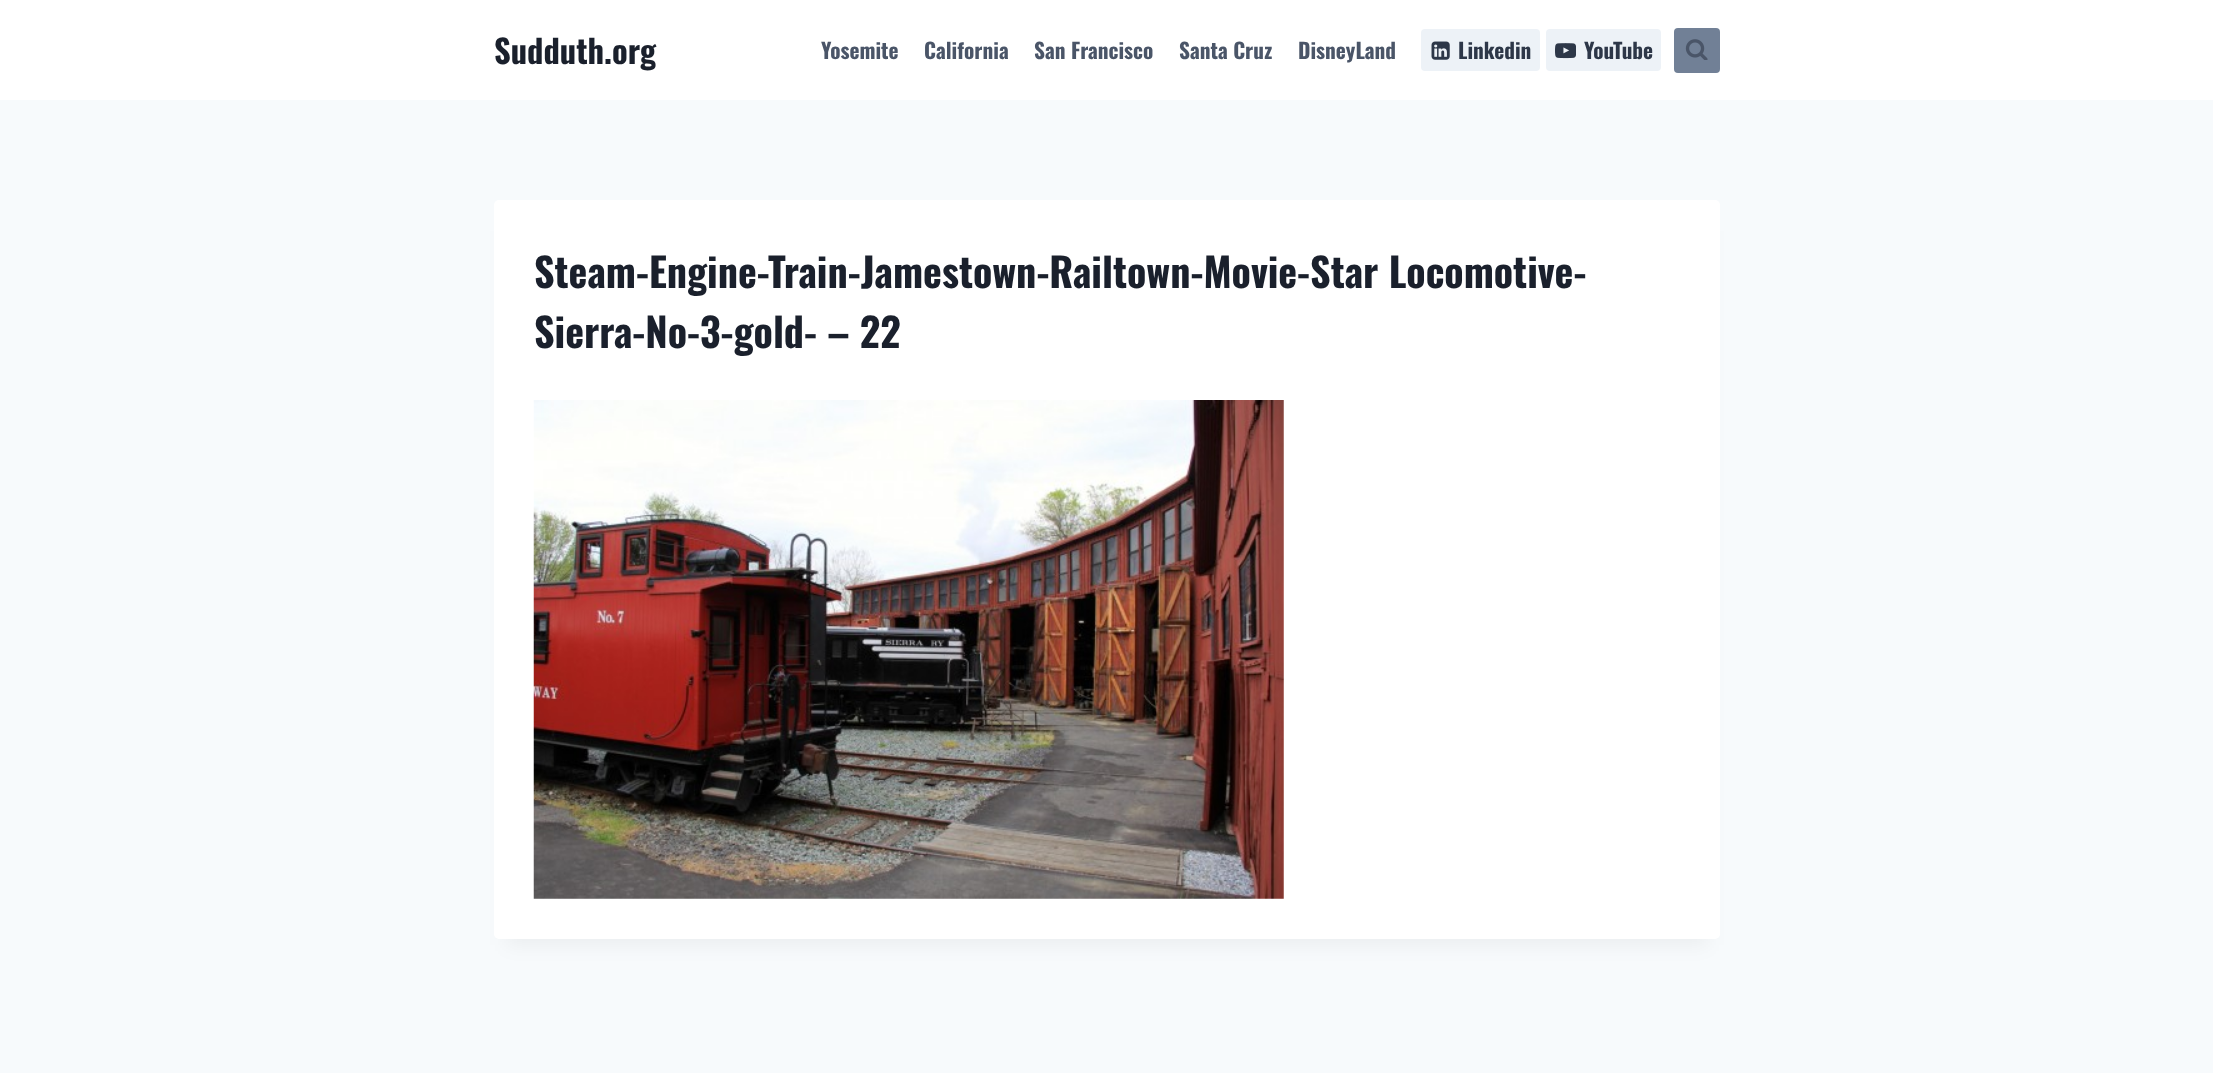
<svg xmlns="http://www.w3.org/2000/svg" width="2213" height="1073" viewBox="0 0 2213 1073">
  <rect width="100%" height="100%" fill="rgb(247,250,252)"/>
  <rect x="0" y="0" width="2213" height="100" fill="rgb(255,255,255)"/>
  <text x="494" y="64" font-family="Oswald" font-size="32.5" font-weight="bold" fill="rgb(26,32,44)">Sudduth.org</text>
  <g font-family="Oswald" font-size="21.25" font-weight="bold" fill="rgb(74,85,104)">
    <text x="821" y="59">Yosemite</text>
    <text x="924" y="59">California</text>
    <text x="1034" y="59">San Francisco</text>
    <text x="1179" y="59">Santa Cruz</text>
    <text x="1298" y="59">DisneyLand</text>
  </g>
  <rect x="1421" y="29" width="119" height="42" rx="4" fill="rgb(237,242,247)"/>
  <image x="1431" y="41" width="19" height="19" href="pic1.png"/>
  <text x="1458" y="59" font-family="Oswald" font-size="21.25" font-weight="bold" fill="rgb(45,55,72)">Linkedin</text>
  <rect x="1546" y="29" width="115" height="42" rx="4" fill="rgb(237,242,247)"/>
  <image x="1555" y="43" width="21" height="16" href="pic2.png"/>
  <text x="1584" y="59" font-family="Oswald" font-size="21.25" font-weight="bold" fill="rgb(45,55,72)">YouTube</text>
  <rect x="1674" y="28" width="46" height="45" rx="4" fill="rgb(113,128,150)"/>
  <image x="1685" y="39" width="23" height="21" href="pic3.png"/>
  <rect x="506" y="231" width="1202" height="714" fill="rgba(0,0,0,0.05)" filter="blur(9.5px)"/>
  <rect x="494" y="200" width="1226" height="739" rx="5" fill="rgb(255,255,255)"/>
  <g font-family="Oswald" font-size="40" font-weight="bold" fill="rgb(26,32,44)">
    <text>
      <tspan x="534" y="288">Steam-Engine-Train-Jamestown-Railtown-Movie-Star Locomotive-</tspan>
      <tspan x="534" y="348">Sierra-No-3-gold- – 22</tspan>
    </text>
  </g>
  <image x="533" y="400" width="751" height="499" href="pic4.png"/>
</svg>
